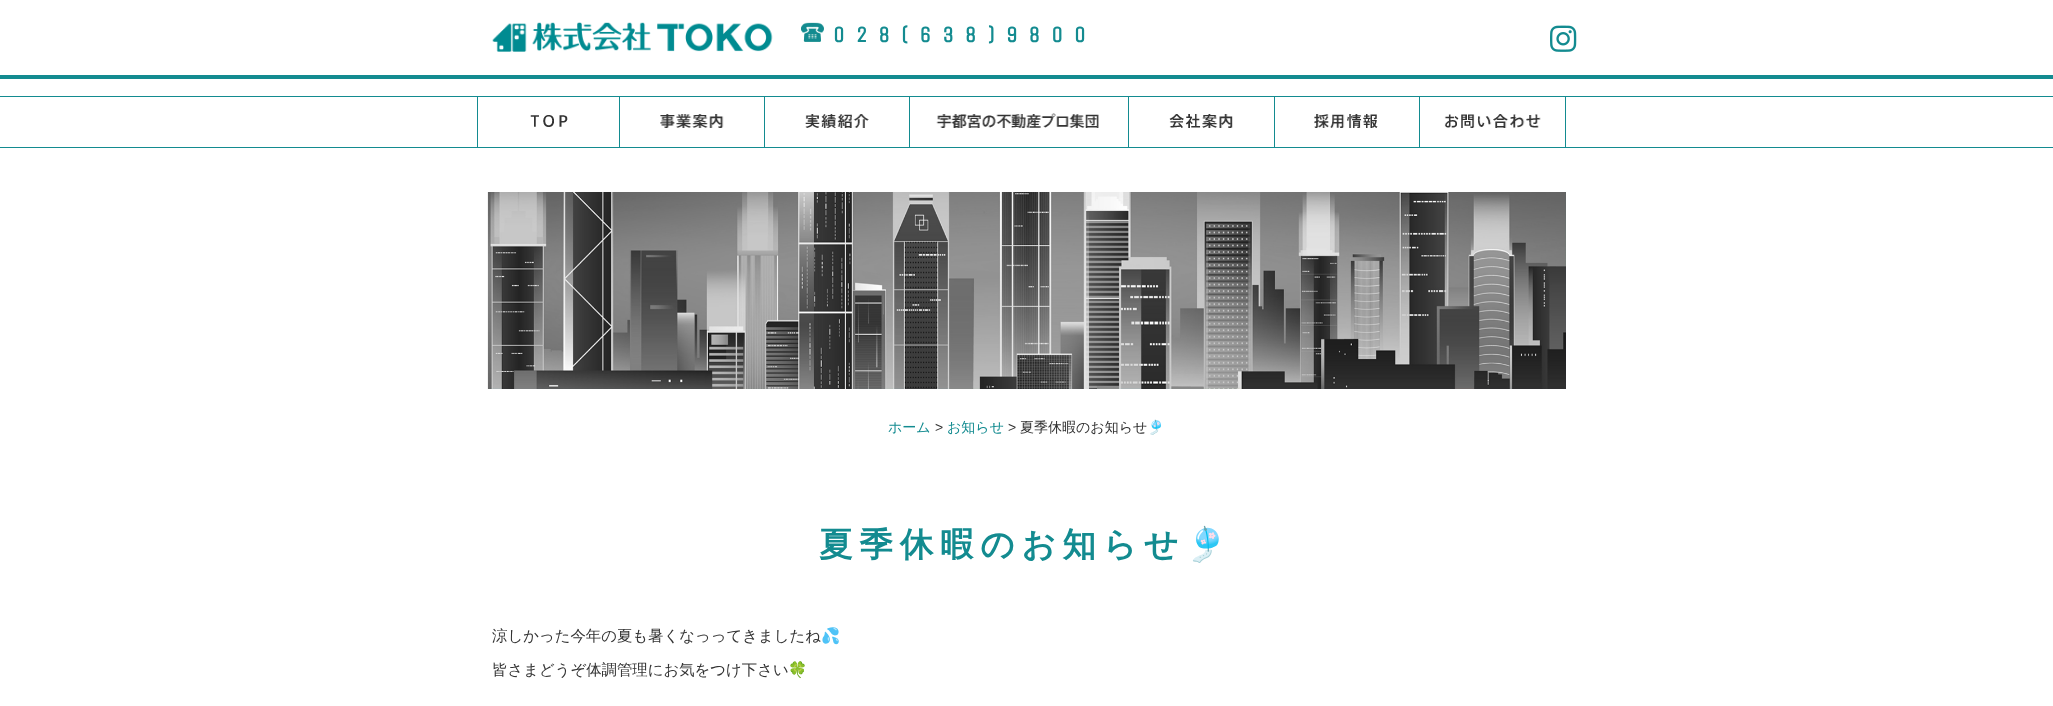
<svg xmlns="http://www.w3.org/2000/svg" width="2053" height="706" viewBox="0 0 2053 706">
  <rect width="100%" height="100%" fill="rgb(255,255,255)"/>
  <rect x="0" y="75" width="2053" height="4" fill="rgb(19,139,144)"/>
  <image x="492" y="22" width="281" height="30" href="pic1.png"/>
  <image x="801" y="22" width="23" height="20" href="pic2.png"/>
  <text x="833" y="42" font-family="Unica One" font-size="22.4" font-weight="bold" letter-spacing="11.25" fill="rgb(19,139,144)">028(638)9800</text>
  <image x="1550" y="25" width="27" height="27" href="pic3.png"/>
  <rect x="0" y="96" width="2053" height="1" fill="rgb(19,139,144)"/>
  <rect x="0" y="147" width="2053" height="1" fill="rgb(19,139,144)"/>
  <rect x="619" y="97" width="1" height="50" fill="rgb(19,139,144)"/>
  <rect x="477" y="97" width="1" height="50" fill="rgb(19,139,144)"/>
  <image x="530" y="115" width="38" height="12" href="pic4.png"/>
  <rect x="764" y="97" width="1" height="50" fill="rgb(19,139,144)"/>
  <image x="660" y="114" width="64" height="14" href="pic5.png"/>
  <rect x="909" y="97" width="1" height="50" fill="rgb(19,139,144)"/>
  <image x="805" y="114" width="64" height="14" href="pic6.png"/>
  <rect x="1128" y="97" width="1" height="50" fill="rgb(19,139,144)"/>
  <image x="936" y="113" width="163" height="15" href="pic7.png"/>
  <rect x="1274" y="97" width="1" height="50" fill="rgb(19,139,144)"/>
  <image x="1169" y="114" width="64" height="14" href="pic8.png"/>
  <rect x="1419" y="97" width="1" height="50" fill="rgb(19,139,144)"/>
  <image x="1314" y="114" width="64" height="14" href="pic9.png"/>
  <rect x="1565" y="97" width="1" height="50" fill="rgb(19,139,144)"/>
  <image x="1444" y="114" width="97" height="14" href="pic10.png"/>
  <image x="488" y="192" width="1078" height="197" href="pic12.png"/>
  <image x="487" y="192" width="1079" height="197" href="pic11.png"/>
  <text x="888" y="432" font-family="WenQuanYi Zen Hei" font-size="14" font-weight="500" fill="rgb(19,139,144)">ホーム</text>
  <text x="935" y="432" font-family="Liberation Sans" font-size="14" fill="rgb(51,51,51)">&gt;</text>
  <text x="947" y="432" font-family="WenQuanYi Zen Hei" font-size="14" font-weight="500" fill="rgb(19,139,144)">お知らせ</text>
  <text x="1008" y="432" font-family="Liberation Sans" font-size="14" fill="rgb(51,51,51)">&gt;</text>
  <text x="1020" y="432" font-family="WenQuanYi Zen Hei" font-size="14" font-weight="500" fill="rgb(51,51,51)">夏季休暇のお知らせ</text>
  <text x="1147" y="432" font-family="Noto Color Emoji" font-size="14" fill="rgb(51,51,51)">🎐</text>
  <text x="819" y="556" font-family="WenQuanYi Zen Hei" font-size="33.6" font-weight="bold" letter-spacing="6.75" fill="rgb(19,139,144)">夏季休暇のお知らせ</text>
  <text x="1185" y="556" font-family="Noto Color Emoji" font-size="33.6" font-weight="bold" letter-spacing="6.75" fill="rgb(19,139,144)">🎐</text>
  <text x="492" y="641" font-family="WenQuanYi Zen Hei" font-size="15.4" font-weight="500" fill="rgb(51,51,51)">涼しかった今年の夏も暑くなっってきましたね</text>
  <text x="821" y="641" font-family="Noto Color Emoji" font-size="15.4" fill="rgb(51,51,51)">💦</text>
  <text x="492" y="675" font-family="WenQuanYi Zen Hei" font-size="15.4" font-weight="500" fill="rgb(51,51,51)">皆さまどうぞ体調管理にお気をつけ下さい</text>
  <text x="788" y="675" font-family="Noto Color Emoji" font-size="15.4" fill="rgb(51,51,51)">🍀</text>
</svg>
